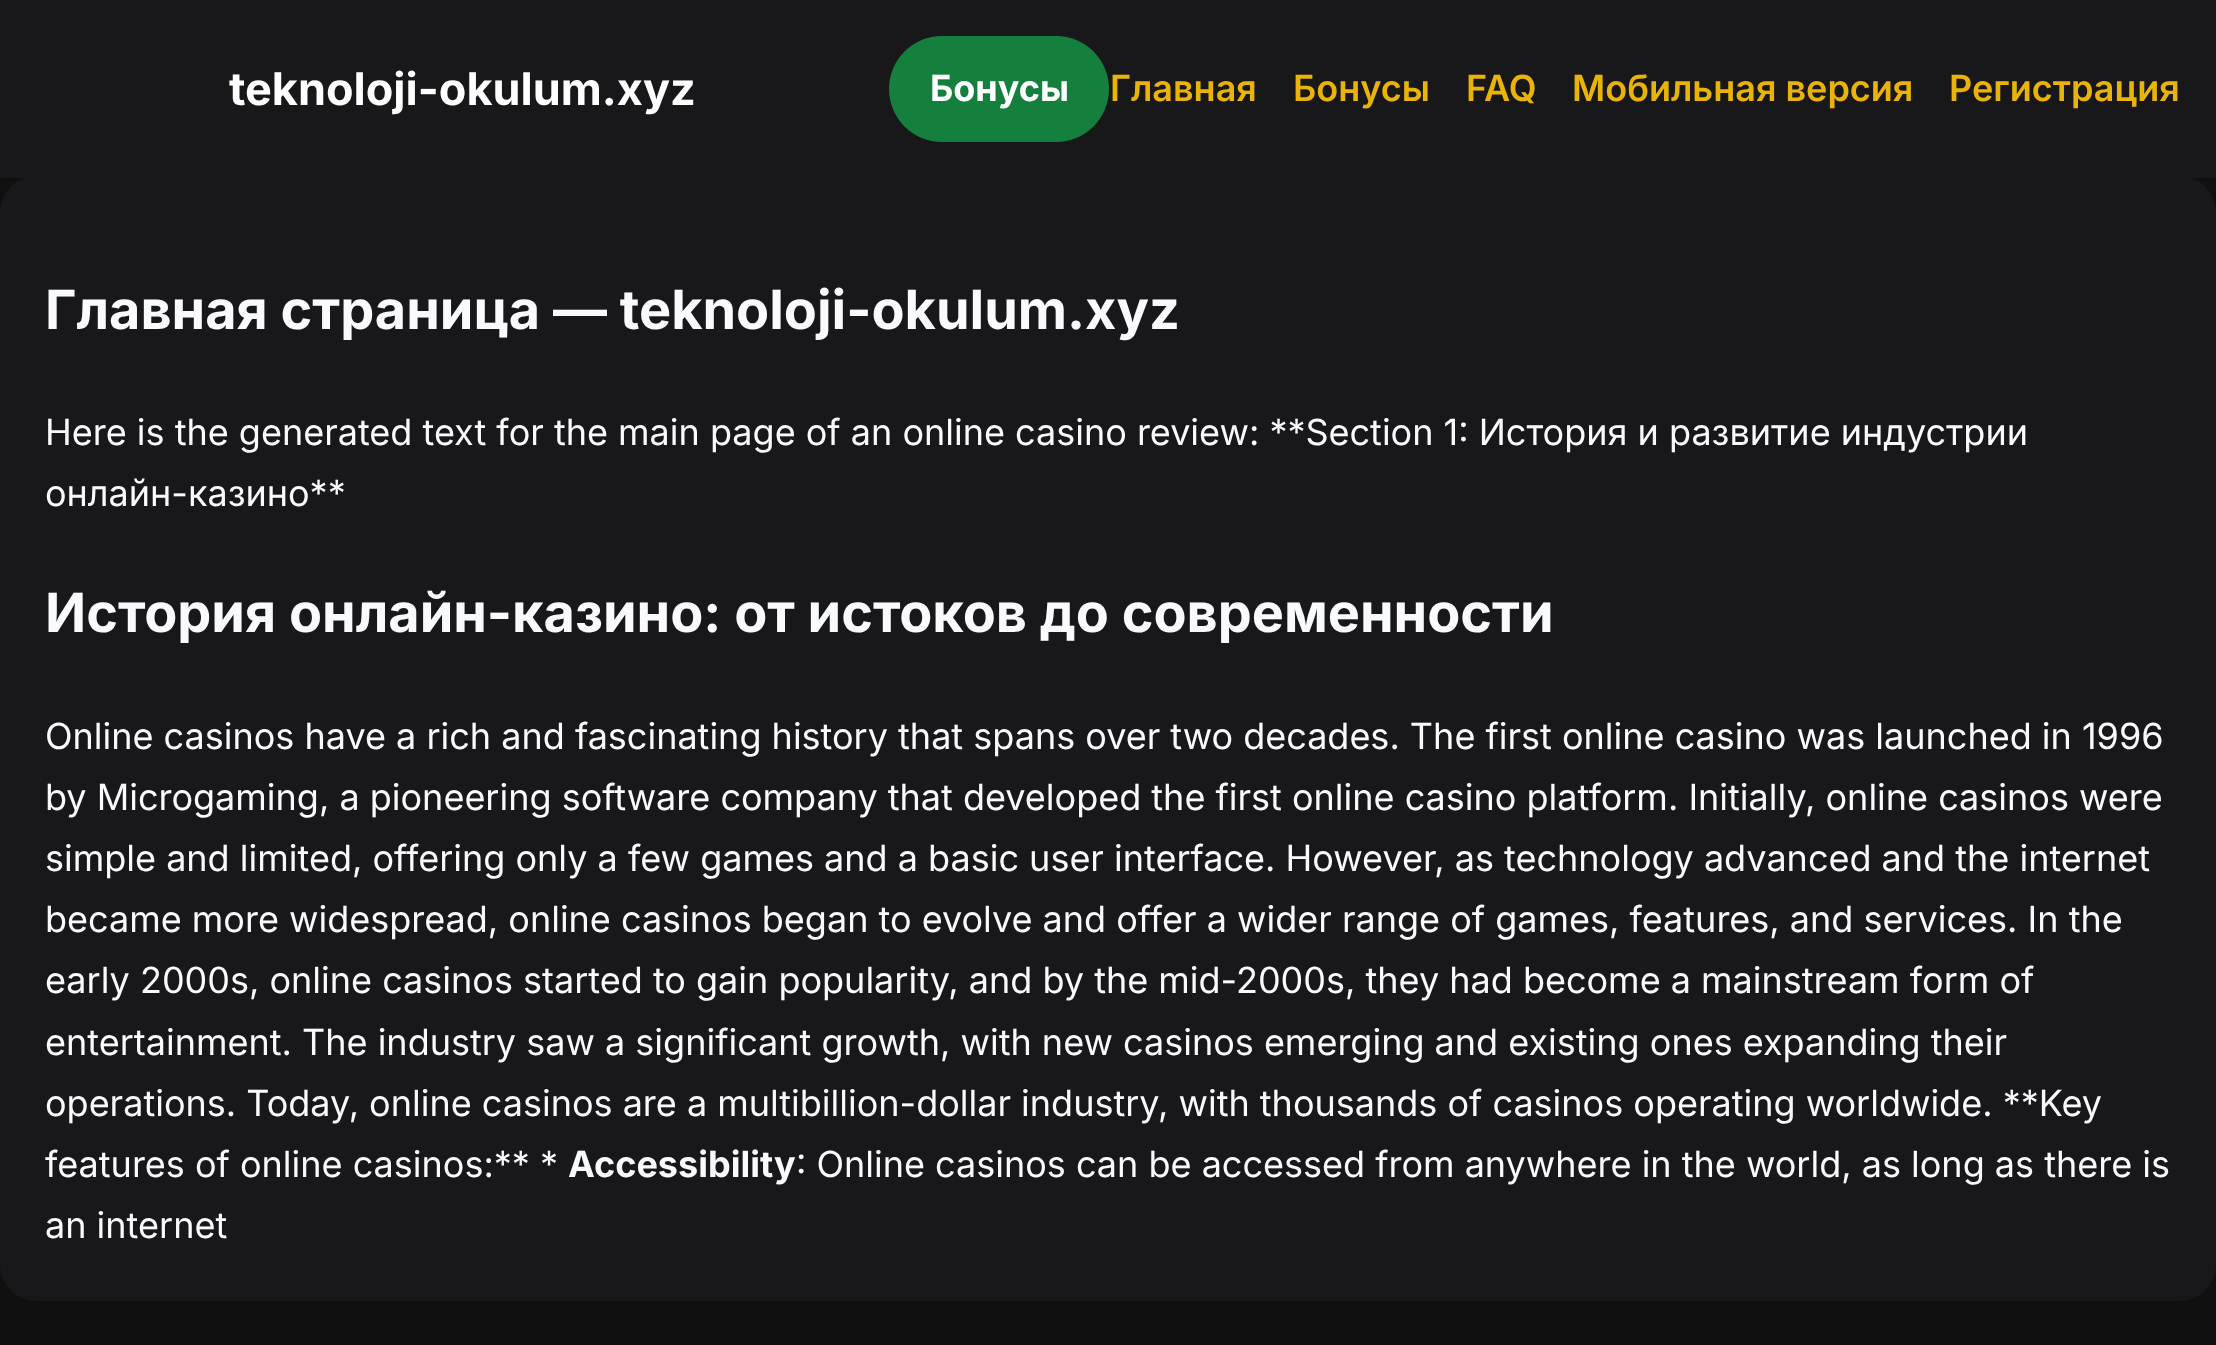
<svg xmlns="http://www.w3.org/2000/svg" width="2216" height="1345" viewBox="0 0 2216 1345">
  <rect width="100%" height="100%" fill="rgb(16,16,16)"/>
  <rect x="0" y="176" width="2216" height="1125" rx="36" fill="rgb(24,24,27)"/>
  <rect x="0" y="0" width="2216" height="178" fill="rgb(24,24,27)"/>
  <text x="229" y="105" font-family="Inter" font-size="45" font-weight="bold" fill="rgb(255,255,255)">teknoloji-okulum.xyz</text>
  <rect x="889" y="36" width="220" height="106" rx="53" fill="rgb(21,128,61)"/>
  <text x="930" y="101" font-family="Inter" font-size="36" font-weight="bold" fill="rgb(255,255,255)">Бонусы</text>
  <g font-family="Inter" font-size="36" font-weight="600" fill="rgb(234,179,8)">
    <text x="1110" y="101">Главная</text>
    <text x="1293" y="101">Бонусы</text>
    <text x="1466" y="101">FAQ</text>
    <text x="1572" y="101">Мобильная версия</text>
    <text x="1949" y="101">Регистрация</text>
  </g>
  <text x="45" y="329" font-family="Inter" font-size="54" font-weight="bold" fill="rgb(248,250,252)">Главная страница — teknoloji-okulum.xyz</text>
  <g font-family="Inter" font-size="36" fill="rgb(248,250,252)">
    <text>
      <tspan x="45" y="445">Here is the generated text for the main page of an online casino review: **Section 1: История и развитие индустрии</tspan>
      <tspan x="45" y="506">онлайн-казино**</tspan>
    </text>
  </g>
  <text x="45" y="632" font-family="Inter" font-size="54" font-weight="bold" fill="rgb(248,250,252)">История онлайн-казино: от истоков до современности</text>
  <g font-family="Inter" font-size="36" fill="rgb(248,250,252)">
    <text>
      <tspan x="45" y="749">Online casinos have a rich and fascinating history that spans over two decades. The first online casino was launched in 1996</tspan>
      <tspan x="45" y="810">by Microgaming, a pioneering software company that developed the first online casino platform. Initially, online casinos were</tspan>
      <tspan x="45" y="871">simple and limited, offering only a few games and a basic user interface. However, as technology advanced and the internet</tspan>
      <tspan x="45" y="932">became more widespread, online casinos began to evolve and offer a wider range of games, features, and services. In the</tspan>
      <tspan x="45" y="993">early 2000s, online casinos started to gain popularity, and by the mid-2000s, they had become a mainstream form of</tspan>
      <tspan x="45" y="1055">entertainment. The industry saw a significant growth, with new casinos emerging and existing ones expanding their</tspan>
      <tspan x="45" y="1116">operations. Today, online casinos are a multibillion-dollar industry, with thousands of casinos operating worldwide. **Key</tspan>
      <tspan x="45" y="1177">features of online casinos:** *</tspan>
    </text>
  </g>
  <text x="568" y="1177" font-family="Inter" font-size="36" font-weight="bold" fill="rgb(248,250,252)">Accessibility</text>
  <g font-family="Inter" font-size="36" fill="rgb(248,250,252)">
    <text x="796" y="1177">: Online casinos can be accessed from anywhere in the world, as long as there is</text>
    <text x="45" y="1238">an internet</text>
  </g>
</svg>
